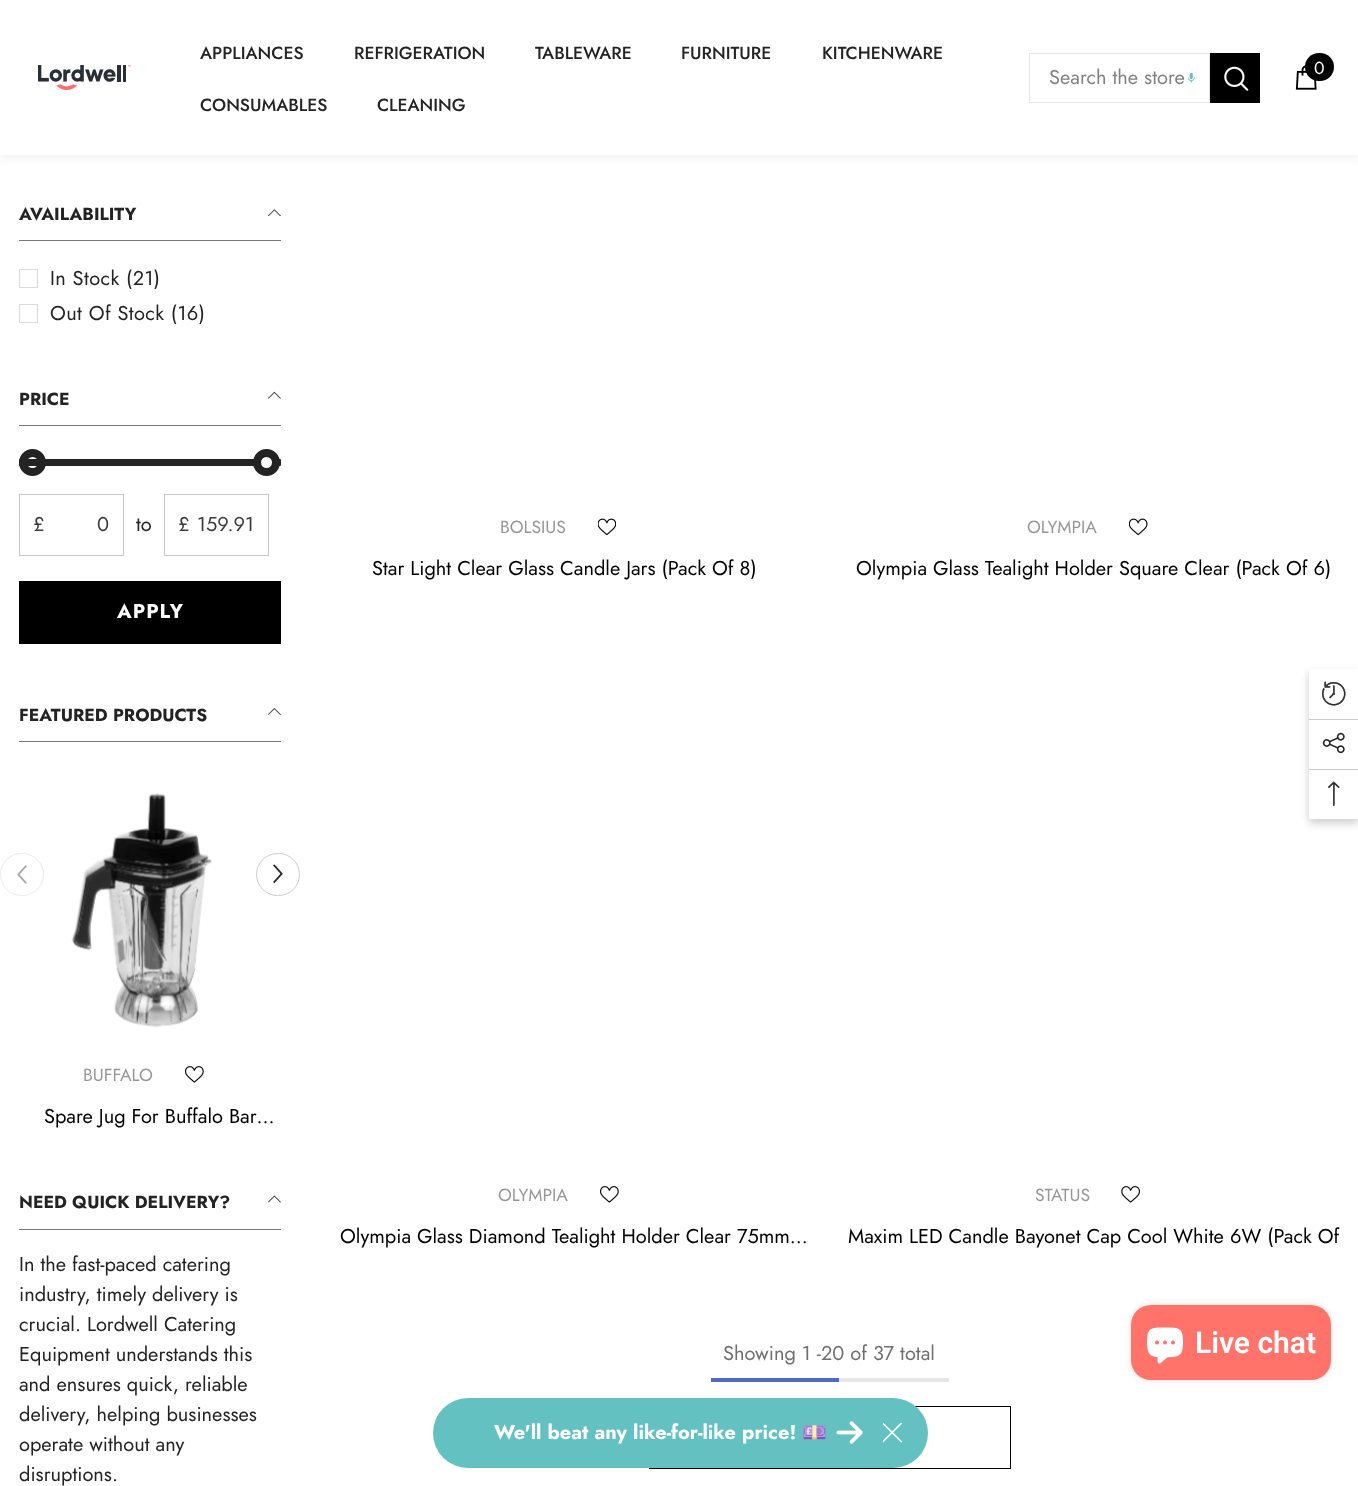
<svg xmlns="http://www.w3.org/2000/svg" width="1358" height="1486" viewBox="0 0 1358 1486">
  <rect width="100%" height="100%" fill="rgb(255,255,255)"/>
  <rect x="-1" y="0" width="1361" height="158" fill="rgba(0,0,0,0.05)" filter="blur(4px)"/>
  <rect x="0" y="0" width="1358" height="155" fill="rgb(255,255,255)"/>
  <image x="38" y="65" width="93" height="25" href="pic1.png"/>
  <g font-family="Jost" font-size="17.5" font-weight="500" fill="rgb(35,35,35)">
    <text x="200" y="59">APPLIANCES</text>
    <text x="354" y="59">REFRIGERATION</text>
    <text x="535" y="59">TABLEWARE</text>
    <text x="681" y="59">FURNITURE</text>
    <text x="822" y="59">KITCHENWARE</text>
    <text x="200" y="111">CONSUMABLES</text>
    <text x="377" y="111">CLEANING</text>
  </g>
  <rect x="1029.5" y="53.5" width="180" height="49" fill="none" stroke="rgb(229,229,229)"/>
  <text x="1049" y="84" font-family="Jost" font-size="20" fill="rgb(130,130,130)">Search the store</text>
  <image x="1187" y="72" width="8" height="11" href="pic2.png"/>
  <rect x="1210" y="53" width="50" height="50" fill="rgb(0,0,0)"/>
  <image x="1224" y="66" width="25" height="25" href="pic3.png"/>
  <image x="1295" y="65" width="22" height="25" href="pic4.png"/>
  <rect x="1305" y="53" width="29" height="28" rx="14" fill="rgb(0,0,0)"/>
  <text x="1314" y="74" font-family="Jost" font-size="17.5" fill="rgb(255,255,255)">0</text>
  <rect x="19" y="240" width="262" height="1" fill="rgb(120,120,120)"/>
  <text x="19" y="220" font-family="Jost" font-size="17.5" font-weight="bold" fill="rgb(35,35,35)">AVAILABILITY</text>
  <image x="268" y="209" width="13" height="7" href="pic5.png"/>
  <rect x="19.5" y="269.5" width="18" height="18" fill="none" stroke="rgb(219,219,219)"/>
  <text x="50" y="285" font-family="Jost" font-size="20" letter-spacing="0.4" fill="rgb(35,35,35)">In Stock (21)</text>
  <rect x="19.5" y="304.5" width="18" height="18" fill="none" stroke="rgb(219,219,219)"/>
  <text x="50" y="320" font-family="Jost" font-size="20" letter-spacing="0.4" fill="rgb(35,35,35)">Out Of Stock (16)</text>
  <rect x="19" y="425" width="262" height="1" fill="rgb(120,120,120)"/>
  <text x="19" y="405" font-family="Jost" font-size="17.5" font-weight="bold" fill="rgb(35,35,35)">PRICE</text>
  <image x="268" y="391" width="13" height="8" href="pic6.png"/>
  <circle cx="32.5" cy="462.5" r="9.5" fill="none" stroke="rgb(35,35,35)" stroke-width="8"/>
  <rect x="19" y="459" width="262" height="7" rx="1" fill="rgb(35,35,35)"/>
  <circle cx="266.5" cy="462.5" r="9.5" fill="rgb(255,255,255)" stroke="rgb(35,35,35)" stroke-width="8"/>
  <rect x="19.5" y="494.5" width="104" height="61" fill="none" stroke="rgb(199,199,199)"/>
  <g font-family="Jost" font-size="20" fill="rgb(60,60,60)">
    <text x="33" y="531">£</text>
    <text x="97" y="531">0</text>
  </g>
  <text x="136" y="531" font-family="Jost" font-size="20" fill="rgb(35,35,35)">to</text>
  <rect x="164.5" y="494.5" width="104" height="61" fill="none" stroke="rgb(199,199,199)"/>
  <g font-family="Jost" font-size="20" fill="rgb(60,60,60)">
    <text x="178" y="531">£</text>
    <text x="197" y="531">159.91</text>
  </g>
  <rect x="19" y="581" width="262" height="63" fill="rgb(0,0,0)"/>
  <text x="117" y="618" font-family="Jost" font-size="20" font-weight="bold" letter-spacing="1" fill="rgb(255,255,255)">APPLY</text>
  <rect x="19" y="741" width="262" height="1" fill="rgb(120,120,120)"/>
  <text x="19" y="721" font-family="Jost" font-size="17.5" font-weight="bold" fill="rgb(35,35,35)">FEATURED PRODUCTS</text>
  <image x="268" y="708" width="13" height="7" href="pic7.png"/>
  <rect x="0.5" y="853.5" width="43" height="42" rx="21" fill="none" stroke="rgb(235,235,235)"/>
  <image x="17" y="865" width="10" height="19" href="pic8.png"/>
  <rect x="256.5" y="853.5" width="43" height="42" rx="21" fill="none" stroke="rgb(204,204,204)"/>
  <image x="273" y="864" width="10" height="20" href="pic9.png"/>
  <image x="71" y="793" width="141" height="234" href="pic10.png"/>
  <text x="83" y="1081" font-family="Jost" font-size="17.5" fill="rgb(150,150,150)">BUFFALO</text>
  <image x="185" y="1066" width="19" height="17" href="pic11.png"/>
  <text x="44" y="1123" font-family="Jost" font-size="20" fill="rgb(0,0,0)">Spare Jug For Buffalo Bar…</text>
  <rect x="19" y="1229" width="262" height="1" fill="rgb(120,120,120)"/>
  <text x="19" y="1208" font-family="Jost" font-size="17.5" font-weight="bold" fill="rgb(35,35,35)">NEED QUICK DELIVERY?</text>
  <image x="268" y="1195" width="13" height="8" href="pic12.png"/>
  <g font-family="Jost" font-size="20" fill="rgb(35,35,35)">
    <text>
      <tspan x="19" y="1271">In the fast-paced catering</tspan>
      <tspan x="19" y="1301">industry, timely delivery is</tspan>
      <tspan x="19" y="1331">crucial. Lordwell Catering</tspan>
      <tspan x="19" y="1361">Equipment understands this</tspan>
      <tspan x="19" y="1391">and ensures quick, reliable</tspan>
      <tspan x="19" y="1421">delivery, helping businesses</tspan>
      <tspan x="19" y="1451">operate without any</tspan>
      <tspan x="19" y="1481">disruptions.</tspan>
    </text>
  </g>
  <text x="500" y="533" font-family="Jost" font-size="17.5" fill="rgb(150,150,150)">BOLSIUS</text>
  <image x="598" y="518" width="18" height="18" href="pic13.png"/>
  <text x="372" y="575" font-family="Jost" font-size="20" fill="rgb(0,0,0)">Star Light Clear Glass Candle Jars (Pack Of 8)</text>
  <text x="1027" y="533" font-family="Jost" font-size="17.5" fill="rgb(150,150,150)">OLYMPIA</text>
  <image x="1129" y="518" width="19" height="18" href="pic14.png"/>
  <text x="856" y="575" font-family="Jost" font-size="20" fill="rgb(0,0,0)">Olympia Glass Tealight Holder Square Clear (Pack Of 6)</text>
  <text x="498" y="1201" font-family="Jost" font-size="17.5" fill="rgb(150,150,150)">OLYMPIA</text>
  <image x="600" y="1186" width="19" height="17" href="pic11.png"/>
  <text x="340" y="1243" font-family="Jost" font-size="20" fill="rgb(0,0,0)">Olympia Glass Diamond Tealight Holder Clear 75mm…</text>
  <text x="1035" y="1201" font-family="Jost" font-size="17.5" fill="rgb(150,150,150)">STATUS</text>
  <image x="1121" y="1186" width="19" height="17" href="pic15.png"/>
  <text x="848" y="1243" font-family="Jost" font-size="20" fill="rgb(0,0,0)">Maxim LED Candle Bayonet Cap Cool White 6W (Pack Of</text>
  <text x="723" y="1360" font-family="Jost" font-size="20" fill="rgb(112,112,112)">Showing 1 -20 of 37 total</text>
  <rect x="839" y="1378" width="110" height="4" fill="rgb(230,230,230)"/>
  <rect x="711" y="1378" width="128" height="4" fill="rgb(75,108,192)"/>
  <rect x="649.5" y="1406.5" width="361" height="62" fill="none" stroke="rgb(0,0,0)"/>
  <rect x="1309" y="673" width="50" height="150" fill="rgba(0,0,0,0.2)" filter="blur(4.5px)"/>
  <rect x="1309" y="669" width="49" height="150" fill="rgb(255,255,255)"/>
  <image x="1322" y="681" width="24" height="25" href="pic16.png"/>
  <rect x="1309" y="719" width="49" height="1" fill="rgb(204,204,204)"/>
  <image x="1322" y="732" width="23" height="22" href="pic17.png"/>
  <rect x="1309" y="769" width="49" height="1" fill="rgb(204,204,204)"/>
  <image x="1328" y="781" width="12" height="25" href="pic18.png"/>
  <rect x="1131" y="1305" width="200" height="75" rx="20" fill="rgba(0,0,0,0.15)" filter="blur(3px)"/>
  <rect x="1131" y="1305" width="200" height="75" rx="20" fill="rgb(255,115,107)"/>
  <image x="1147" y="1327" width="36" height="37" href="pic19.png"/>
  <text x="1195" y="1353" font-family="Roboto" font-size="30" font-weight="600" fill="rgb(255,255,255)">Live chat</text>
  <rect x="433" y="1398" width="495" height="70" rx="35" fill="rgb(100,193,193)"/>
  <text x="494" y="1439" font-family="Jost" font-size="20" font-weight="bold" fill="rgb(255,255,255)">We'll beat any like-for-like price!</text>
  <text x="802" y="1439" font-family="Noto Color Emoji" font-size="20" font-weight="bold" fill="rgb(255,255,255)">💷</text>
  <image x="836" y="1421" width="27" height="23" href="pic20.png"/>
  <image x="883" y="1423" width="20" height="20" href="pic21.png"/>
</svg>
